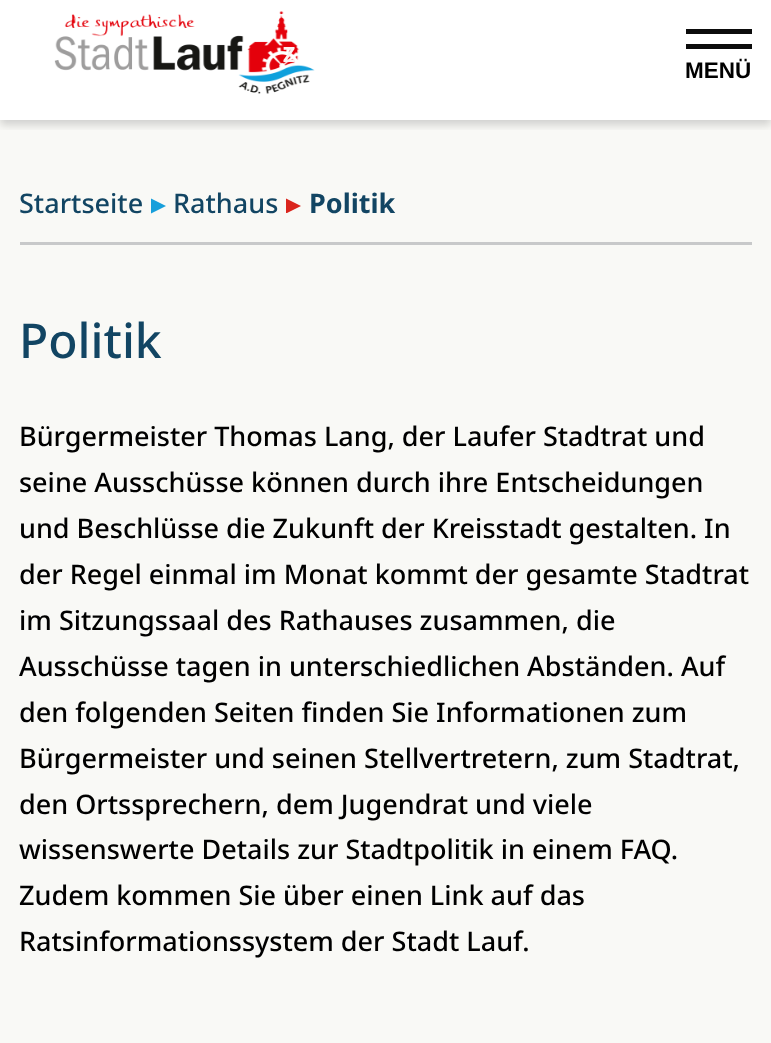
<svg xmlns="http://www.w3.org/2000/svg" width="771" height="1043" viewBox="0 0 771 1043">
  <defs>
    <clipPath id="clip1"><rect x="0" y="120" width="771" height="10"/></clipPath>
  </defs>
  <rect width="100%" height="100%" fill="rgb(255,255,255)"/>
  <rect x="0" y="120" width="771" height="923" fill="rgb(249,249,246)"/>
  <g clip-path="url(#clip1)">
    <rect x="0" y="5" width="771" height="120" fill="rgba(0,0,0,0.16)" filter="blur(4.5px)"/>
  </g>
  <image x="54" y="11" width="261" height="83" href="pic1.png"/>
  <text x="283" y="62" font-family="Noto Sans" font-size="21" font-weight="bold" fill="rgb(254,242,242)">Z</text>
  <rect x="686" y="29" width="66" height="5" fill="rgb(12,12,12)"/>
  <rect x="686" y="44" width="66" height="5" fill="rgb(12,12,12)"/>
  <text x="685" y="78" font-family="Liberation Sans" font-size="22.5" font-weight="bold" fill="rgb(0,0,0)">MENÜ</text>
  <g font-family="Noto Sans" font-size="27" font-weight="500" fill="rgb(18,69,99)">
    <text x="19" y="213">Startseite</text>
    <text x="173" y="213">Rathaus</text>
  </g>
  <path d="M151 198.5L166 206L151 213.5Z" fill="rgb(23,159,219)"/>
  <text x="309" y="213" font-family="Noto Sans" font-size="27" font-weight="bold" fill="rgb(18,69,99)">Politik</text>
  <path d="M286 198.5L301 206L287 213H286Z" fill="rgb(218,37,29)"/>
  <rect x="20" y="242" width="732" height="3" fill="rgb(200,201,202)"/>
  <text x="19" y="358" font-family="Noto Sans" font-size="48" font-weight="500" fill="rgb(18,69,99)">Politik</text>
  <g font-family="Noto Sans" font-size="27" font-weight="500" fill="rgb(0,0,0)">
    <text>
      <tspan x="19" y="446">Bürgermeister Thomas Lang, der Laufer Stadtrat und</tspan>
      <tspan x="19" y="492">seine Ausschüsse können durch ihre Entscheidungen</tspan>
      <tspan x="19" y="538">und Beschlüsse die Zukunft der Kreisstadt gestalten. In</tspan>
      <tspan x="19" y="584">der Regel einmal im Monat kommt der gesamte Stadtrat</tspan>
      <tspan x="19" y="630">im Sitzungssaal des Rathauses zusammen, die</tspan>
      <tspan x="19" y="676">Ausschüsse tagen in unterschiedlichen Abständen. Auf</tspan>
      <tspan x="19" y="722">den folgenden Seiten finden Sie Informationen zum</tspan>
      <tspan x="19" y="768">Bürgermeister und seinen Stellvertretern, zum Stadtrat,</tspan>
      <tspan x="19" y="814">den Ortssprechern, dem Jugendrat und viele</tspan>
      <tspan x="19" y="859">wissenswerte Details zur Stadtpolitik in einem FAQ.</tspan>
      <tspan x="19" y="905">Zudem kommen Sie über einen Link auf das</tspan>
      <tspan x="19" y="951">Ratsinformationssystem der Stadt Lauf.</tspan>
    </text>
  </g>
</svg>
